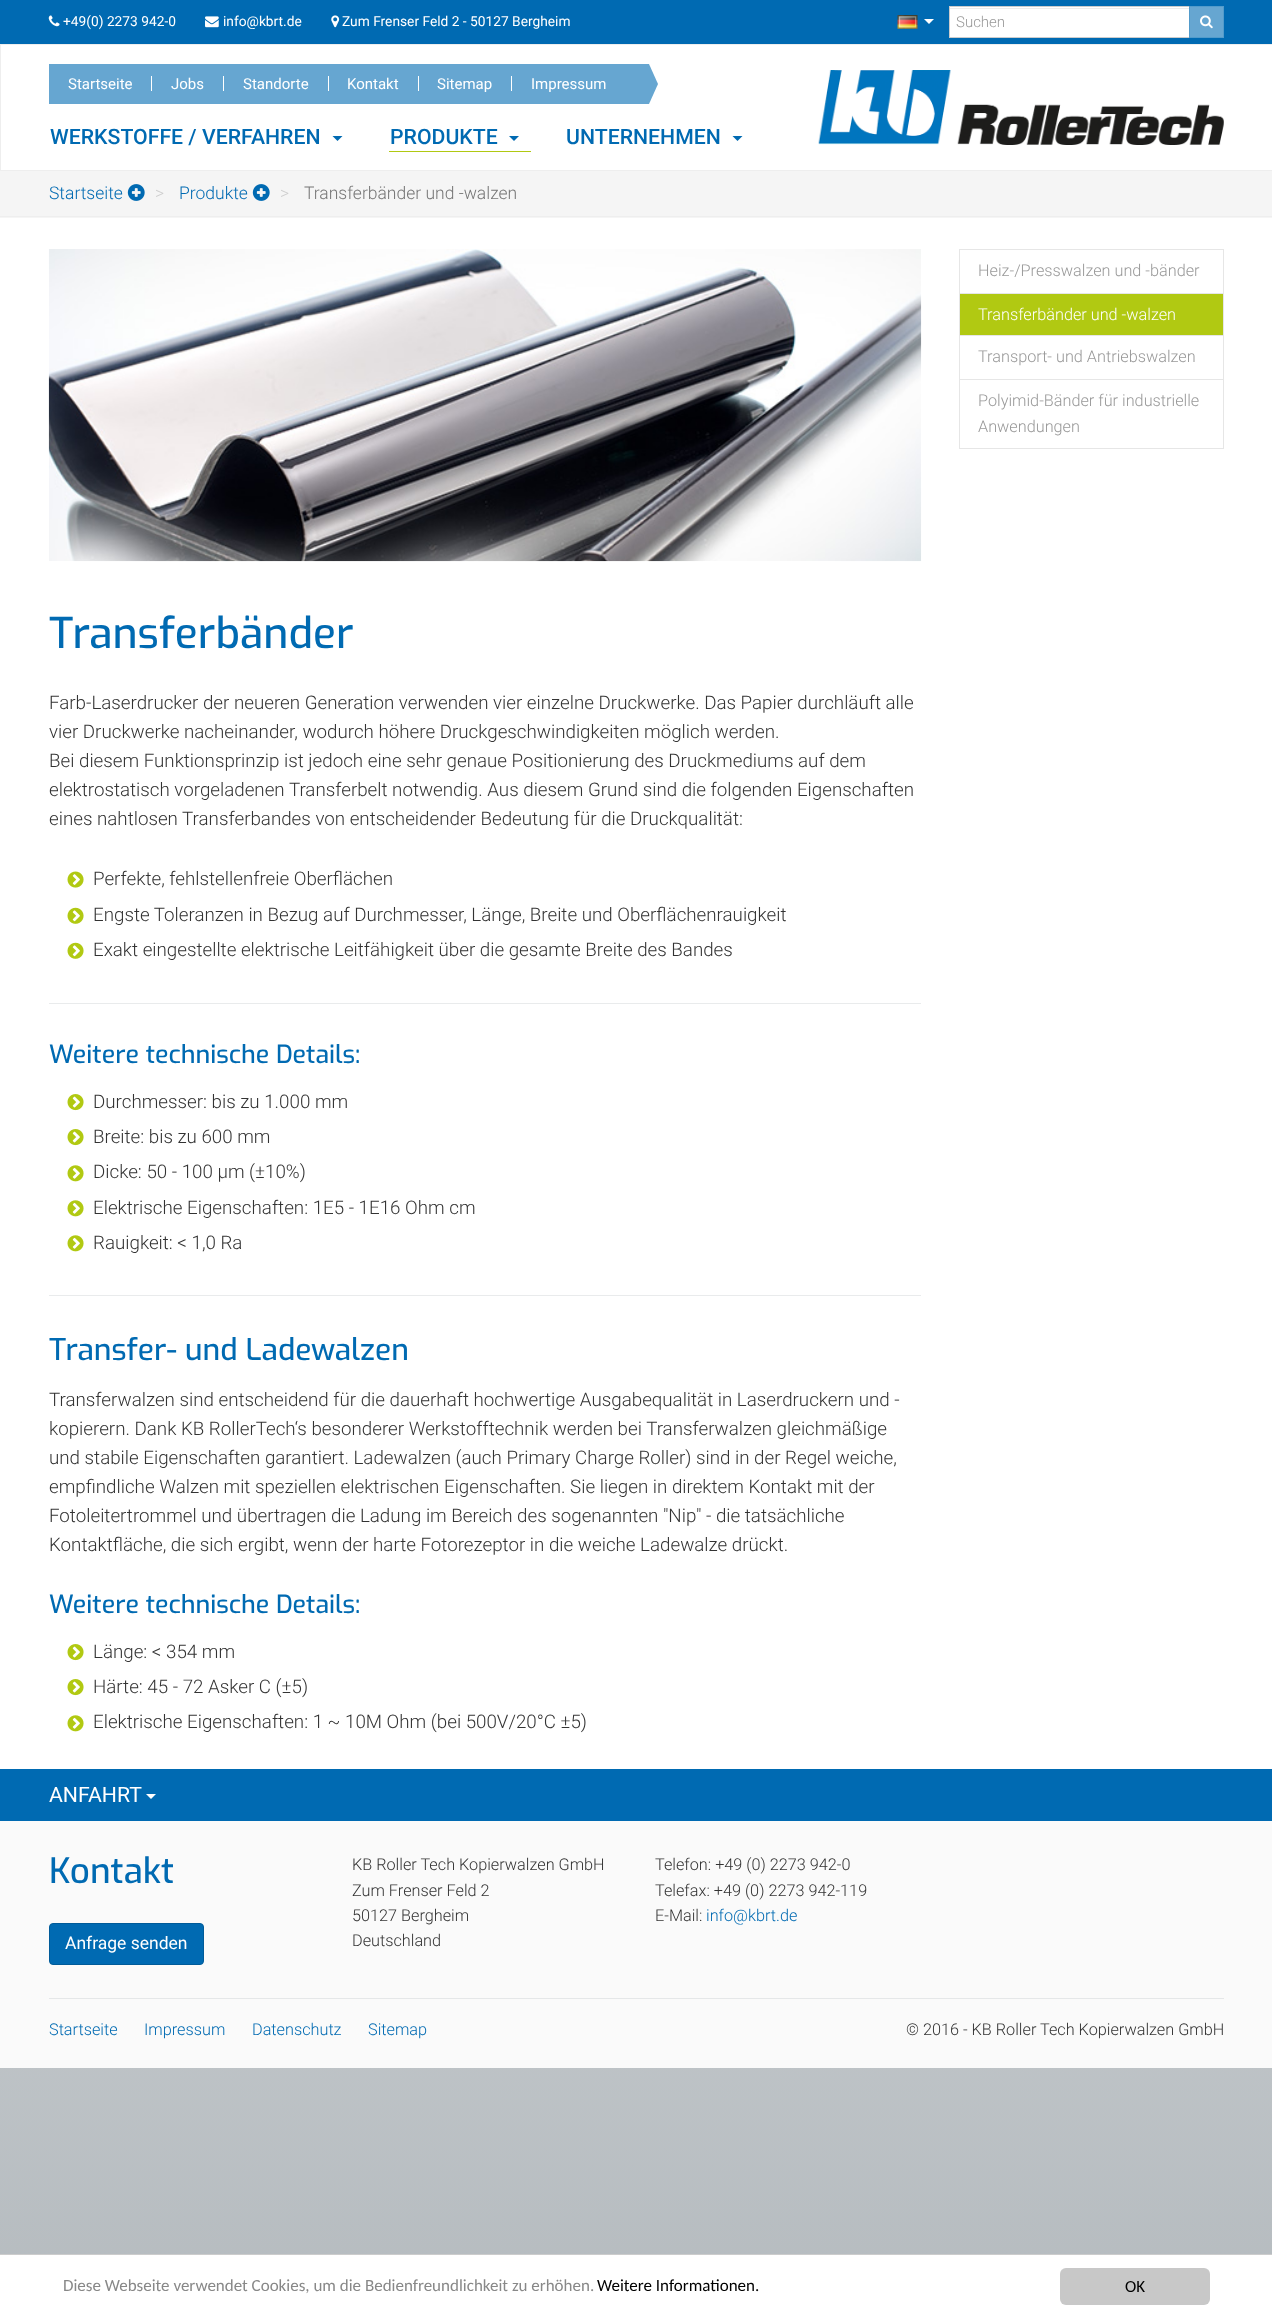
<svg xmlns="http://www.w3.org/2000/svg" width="1272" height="2317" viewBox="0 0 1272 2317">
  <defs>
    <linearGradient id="g1" gradientUnits="userSpaceOnUse" x1="636" y1="0" x2="636" y2="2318"><stop offset="0" stop-color="rgb(255,255,255)"/><stop offset="1" stop-color="rgb(181,187,191)"/></linearGradient>
  </defs>
  <rect width="100%" height="100%" fill="rgb(255,255,255)"/>
  <rect x="0" y="2068" width="1272" height="186" fill="url(#g1)"/>
  <rect x="0" y="0" width="1272" height="44" fill="rgb(0,106,178)"/>
  <image x="48" y="15" width="12" height="12" href="pic1.png"/>
  <text x="63" y="26" font-family="Roboto" font-size="13.75" fill="rgb(255,255,255)">+49(0) 2273 942-0</text>
  <image x="205" y="16" width="14" height="12" href="pic2.png"/>
  <text x="223" y="26" font-family="Roboto" font-size="13.75" fill="rgb(255,255,255)">info@kbrt.de</text>
  <image x="331" y="15" width="9" height="13" href="pic3.png"/>
  <text x="342" y="26" font-family="Roboto" font-size="13.75" fill="rgb(255,255,255)">Zum Frenser Feld 2 - 50127 Bergheim</text>
  <image x="897" y="15" width="21" height="14" href="pic4.png"/>
  <path d="M924 19H934L929 24Z" fill="rgb(255,255,255)"/>
  <rect x="950" y="7" width="239" height="30" fill="rgb(255,255,255)"/>
  <rect x="950" y="8" width="239" height="1" fill="rgb(236,236,236)"/>
  <rect x="949.5" y="6.5" width="240" height="31" fill="none" stroke="rgb(204,204,204)"/>
  <text x="956" y="27" font-family="Roboto" font-size="15" font-weight="300" fill="rgb(153,153,153)">Suchen</text>
  <rect x="1189.5" y="6.5" width="34" height="31" fill="rgb(102,166,209)" stroke="rgb(82,155,203)"/>
  <image x="1200" y="15" width="13" height="14" href="pic5.png"/>
  <rect x="0.5" y="44.5" width="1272" height="126" fill="none" stroke="rgb(238,238,238)"/>
  <rect x="49" y="64" width="600" height="40" fill="rgb(102,166,209)"/>
  <rect x="151" y="76" width="1" height="15" fill="rgb(255,255,255)"/>
  <text x="68" y="89" font-family="Roboto" font-size="15" fill="rgb(255,255,255)">Startseite</text>
  <rect x="223" y="76" width="1" height="15" fill="rgb(255,255,255)"/>
  <text x="171" y="89" font-family="Roboto" font-size="15" fill="rgb(255,255,255)">Jobs</text>
  <rect x="328" y="76" width="1" height="15" fill="rgb(255,255,255)"/>
  <text x="243" y="89" font-family="Roboto" font-size="15" fill="rgb(255,255,255)">Standorte</text>
  <rect x="418" y="76" width="1" height="15" fill="rgb(255,255,255)"/>
  <text x="347" y="89" font-family="Roboto" font-size="15" fill="rgb(255,255,255)">Kontakt</text>
  <rect x="511" y="76" width="1" height="15" fill="rgb(255,255,255)"/>
  <g font-family="Roboto" font-size="15" fill="rgb(255,255,255)">
    <text x="437" y="89">Sitemap</text>
    <text x="531" y="89">Impressum</text>
  </g>
  <path d="M649 104V64L658 84Z" fill="rgb(102,166,209)"/>
  <text x="50" y="144" font-family="Roboto" font-size="21.25" font-weight="500" fill="rgb(0,106,178)">WERKSTOFFE / VERFAHREN</text>
  <path d="M332.5 136H342.5L337.5 141Z" fill="rgb(0,106,178)"/>
  <text x="390" y="144" font-family="Roboto" font-size="21.25" font-weight="500" fill="rgb(0,106,178)">PRODUKTE</text>
  <path d="M509 136H519L514 141Z" fill="rgb(0,106,178)"/>
  <rect x="389" y="151" width="142" height="1" fill="rgb(177,201,18)"/>
  <text x="566" y="144" font-family="Roboto" font-size="21.25" font-weight="500" fill="rgb(0,106,178)">UNTERNEHMEN</text>
  <path d="M732.5 136H742.5L737.5 141Z" fill="rgb(0,106,178)"/>
  <image x="818" y="70" width="406" height="75" href="pic6.png"/>
  <rect x="0" y="171" width="1272" height="47" fill="rgb(245,245,245)"/>
  <rect x="0" y="216" width="1272" height="1" fill="rgb(238,238,238)"/>
  <text x="49" y="199" font-family="Roboto" font-size="17.5" font-weight="300" fill="rgb(0,106,178)">Startseite</text>
  <image x="127" y="184" width="18" height="17" href="pic7.png"/>
  <text x="155" y="199" font-family="Roboto" font-size="17.5" font-weight="300" fill="rgb(204,204,204)">&gt;</text>
  <text x="179" y="199" font-family="Roboto" font-size="17.5" font-weight="300" fill="rgb(0,106,178)">Produkte</text>
  <image x="252" y="184" width="18" height="17" href="pic7.png"/>
  <text x="280" y="199" font-family="Roboto" font-size="17.5" font-weight="300" fill="rgb(204,204,204)">&gt;</text>
  <text x="304" y="199" font-family="Roboto" font-size="17.5" font-weight="300" fill="rgb(119,119,119)">Transferbänder und -walzen</text>
  <rect x="959.5" y="249.5" width="264" height="44" fill="none" stroke="rgb(230,230,230)"/>
  <text x="978" y="276" font-family="Roboto" font-size="16.25" font-weight="300" fill="rgb(153,153,153)">Heiz-/Presswalzen und -bänder</text>
  <rect x="960" y="294" width="263" height="41" fill="rgb(177,201,18)"/>
  <rect x="1223" y="293" width="1" height="43" fill="rgb(230,230,230)"/>
  <rect x="959" y="293" width="1" height="43" fill="rgb(230,230,230)"/>
  <text x="978" y="320" font-family="Roboto" font-size="16.25" font-weight="300" fill="rgb(255,255,255)">Transferbänder und -walzen</text>
  <rect x="959.5" y="335.5" width="264" height="44" fill="none" stroke="rgb(230,230,230)"/>
  <text x="978" y="362" font-family="Roboto" font-size="16.25" font-weight="300" fill="rgb(153,153,153)">Transport- und Antriebswalzen</text>
  <rect x="959.5" y="379.5" width="264" height="69" fill="none" stroke="rgb(230,230,230)"/>
  <g font-family="Roboto" font-size="16.25" font-weight="300" fill="rgb(153,153,153)">
    <text>
      <tspan x="978" y="406">Polyimid-Bänder für industrielle</tspan>
      <tspan x="978" y="432">Anwendungen</tspan>
    </text>
  </g>
  <image x="48" y="249" width="874" height="313" href="pic8.png"/>
  <text x="49" y="648" font-family="Exo" font-size="42.5" font-weight="500" fill="rgb(0,106,178)">Transferbänder</text>
  <g font-family="Roboto" font-size="18.75" font-weight="300" fill="rgb(51,51,51)">
    <text>
      <tspan x="49" y="709">Farb-Laserdrucker der neueren Generation verwenden vier einzelne Druckwerke. Das Papier durchläuft alle</tspan>
      <tspan x="49" y="738">vier Druckwerke nacheinander, wodurch höhere Druckgeschwindigkeiten möglich werden.</tspan>
      <tspan x="49" y="767">Bei diesem Funktionsprinzip ist jedoch eine sehr genaue Positionierung des Druckmediums auf dem</tspan>
      <tspan x="49" y="796">elektrostatisch vorgeladenen Transferbelt notwendig. Aus diesem Grund sind die folgenden Eigenschaften</tspan>
      <tspan x="49" y="825">eines nahtlosen Transferbandes von entscheidender Bedeutung für die Druckqualität:</tspan>
    </text>
  </g>
  <image x="67" y="871" width="17" height="17" href="pic9.png"/>
  <text x="93" y="885" font-family="Roboto" font-size="18.75" font-weight="300" fill="rgb(51,51,51)">Perfekte, fehlstellenfreie Oberflächen</text>
  <image x="67" y="907" width="17" height="17" href="pic10.png"/>
  <text x="93" y="921" font-family="Roboto" font-size="18.75" font-weight="300" fill="rgb(51,51,51)">Engste Toleranzen in Bezug auf Durchmesser, Länge, Breite und Oberflächenrauigkeit</text>
  <image x="67" y="942" width="17" height="17" href="pic10.png"/>
  <text x="93" y="956" font-family="Roboto" font-size="18.75" font-weight="300" fill="rgb(51,51,51)">Exakt eingestellte elektrische Leitfähigkeit über die gesamte Breite des Bandes</text>
  <rect x="49" y="1003" width="872" height="1" fill="rgb(233,235,236)"/>
  <text x="49" y="1063" font-family="Exo" font-size="25" font-weight="500" fill="rgb(0,106,178)">Weitere technische Details:</text>
  <image x="67" y="1094" width="17" height="17" href="pic11.png"/>
  <text x="93" y="1108" font-family="Roboto" font-size="18.75" font-weight="300" fill="rgb(51,51,51)">Durchmesser: bis zu 1.000 mm</text>
  <image x="67" y="1129" width="17" height="17" href="pic11.png"/>
  <text x="93" y="1143" font-family="Roboto" font-size="18.75" font-weight="300" fill="rgb(51,51,51)">Breite: bis zu 600 mm</text>
  <image x="67" y="1165" width="17" height="17" href="pic12.png"/>
  <text x="93" y="1178" font-family="Roboto" font-size="18.75" font-weight="300" fill="rgb(51,51,51)">Dicke: 50 - 100 µm (±10%)</text>
  <image x="67" y="1200" width="17" height="17" href="pic12.png"/>
  <text x="93" y="1214" font-family="Roboto" font-size="18.75" font-weight="300" fill="rgb(51,51,51)">Elektrische Eigenschaften: 1E5 - 1E16 Ohm cm</text>
  <image x="67" y="1235" width="17" height="17" href="pic12.png"/>
  <text x="93" y="1249" font-family="Roboto" font-size="18.75" font-weight="300" fill="rgb(51,51,51)">Rauigkeit: &lt; 1,0 Ra</text>
  <rect x="49" y="1295" width="872" height="1" fill="rgb(233,235,236)"/>
  <text x="49" y="1360" font-family="Exo" font-size="30" font-weight="500" fill="rgb(0,106,178)">Transfer- und Ladewalzen</text>
  <g font-family="Roboto" font-size="18.75" font-weight="300" fill="rgb(51,51,51)">
    <text>
      <tspan x="49" y="1406">Transferwalzen sind entscheidend für die dauerhaft hochwertige Ausgabequalität in Laserdruckern und -</tspan>
      <tspan x="49" y="1435">kopierern. Dank KB RollerTech‘s besonderer Werkstofftechnik werden bei Transferwalzen gleichmäßige</tspan>
      <tspan x="49" y="1464">und stabile Eigenschaften garantiert. Ladewalzen (auch Primary Charge Roller) sind in der Regel weiche,</tspan>
      <tspan x="49" y="1493">empfindliche Walzen mit speziellen elektrischen Eigenschaften. Sie liegen in direktem Kontakt mit der</tspan>
      <tspan x="49" y="1522">Fotoleitertrommel und übertragen die Ladung im Bereich des sogenannten "Nip" - die tatsächliche</tspan>
      <tspan x="49" y="1551">Kontaktfläche, die sich ergibt, wenn der harte Fotorezeptor in die weiche Ladewalze drückt.</tspan>
    </text>
  </g>
  <text x="49" y="1613" font-family="Exo" font-size="25" font-weight="500" fill="rgb(0,106,178)">Weitere technische Details:</text>
  <image x="67" y="1644" width="17" height="17" href="pic11.png"/>
  <text x="93" y="1658" font-family="Roboto" font-size="18.75" font-weight="300" fill="rgb(51,51,51)">Länge: &lt; 354 mm</text>
  <image x="67" y="1679" width="17" height="17" href="pic11.png"/>
  <text x="93" y="1693" font-family="Roboto" font-size="18.75" font-weight="300" fill="rgb(51,51,51)">Härte: 45 - 72 Asker C (±5)</text>
  <image x="67" y="1715" width="17" height="17" href="pic12.png"/>
  <text x="93" y="1728" font-family="Roboto" font-size="18.75" font-weight="300" fill="rgb(51,51,51)">Elektrische Eigenschaften: 1 ~ 10M Ohm (bei 500V/20°C ±5)</text>
  <rect x="0" y="1769" width="1272" height="52" fill="rgb(0,106,178)"/>
  <text x="49" y="1802" font-family="Roboto" font-size="21.25" fill="rgb(255,255,255)">ANFAHRT</text>
  <path d="M146 1794H156L151 1799Z" fill="rgb(255,255,255)"/>
  <rect x="0" y="1821" width="1272" height="247" fill="rgb(250,250,250)"/>
  <text x="49" y="1883" font-family="Exo" font-size="35" font-weight="500" fill="rgb(0,106,178)">Kontakt</text>
  <rect x="49.5" y="1923.5" width="154" height="41" rx="3.5" fill="rgb(0,106,178)" stroke="rgb(0,91,153)"/>
  <text x="65" y="1949" font-family="Roboto" font-size="17.5" fill="rgb(255,255,255)">Anfrage senden</text>
  <g font-family="Roboto" font-size="16.25" font-weight="300" fill="rgb(51,51,51)">
    <text>
      <tspan x="352" y="1870">KB Roller Tech Kopierwalzen GmbH</tspan>
      <tspan x="352" y="1896">Zum Frenser Feld 2</tspan>
      <tspan x="352" y="1921">50127 Bergheim</tspan>
      <tspan x="352" y="1946">Deutschland</tspan>
    </text>
    <text>
      <tspan x="655" y="1870">Telefon: +49 (0) 2273 942-0</tspan>
      <tspan x="655" y="1896">Telefax: +49 (0) 2273 942-119</tspan>
      <tspan x="655" y="1921">E-Mail:</tspan>
    </text>
  </g>
  <text x="706" y="1921" font-family="Roboto" font-size="16.25" font-weight="300" fill="rgb(0,106,178)">info@kbrt.de</text>
  <rect x="49" y="1998" width="1175" height="1" fill="rgb(229,231,232)"/>
  <g font-family="Roboto" font-size="16.25" font-weight="300" fill="rgb(0,106,178)">
    <text x="49" y="2035">Startseite</text>
    <text x="144" y="2035">Impressum</text>
    <text x="252" y="2035">Datenschutz</text>
    <text x="368" y="2035">Sitemap</text>
  </g>
  <text x="906" y="2035" font-family="Roboto" font-size="16.25" font-weight="300" fill="rgb(51,51,51)">© 2016 - KB Roller Tech Kopierwalzen GmbH</text>
  <rect x="0" y="2254" width="1272" height="1" fill="rgb(204,204,204)"/>
  <text x="63" y="2291" font-family="Carlito" font-size="17" fill="rgb(136,136,136)">Diese Webseite verwendet Cookies, um die Bedienfreundlichkeit zu erhöhen.</text>
  <text x="597" y="2291" font-family="Carlito" font-size="17" fill="rgb(0,0,0)">Weitere Informationen.</text>
  <rect x="1060" y="2268" width="150" height="37" rx="6" fill="rgb(200,200,200)"/>
  <text x="1125" y="2292" font-family="Carlito" font-size="17" fill="rgb(0,0,0)">OK</text>
</svg>
